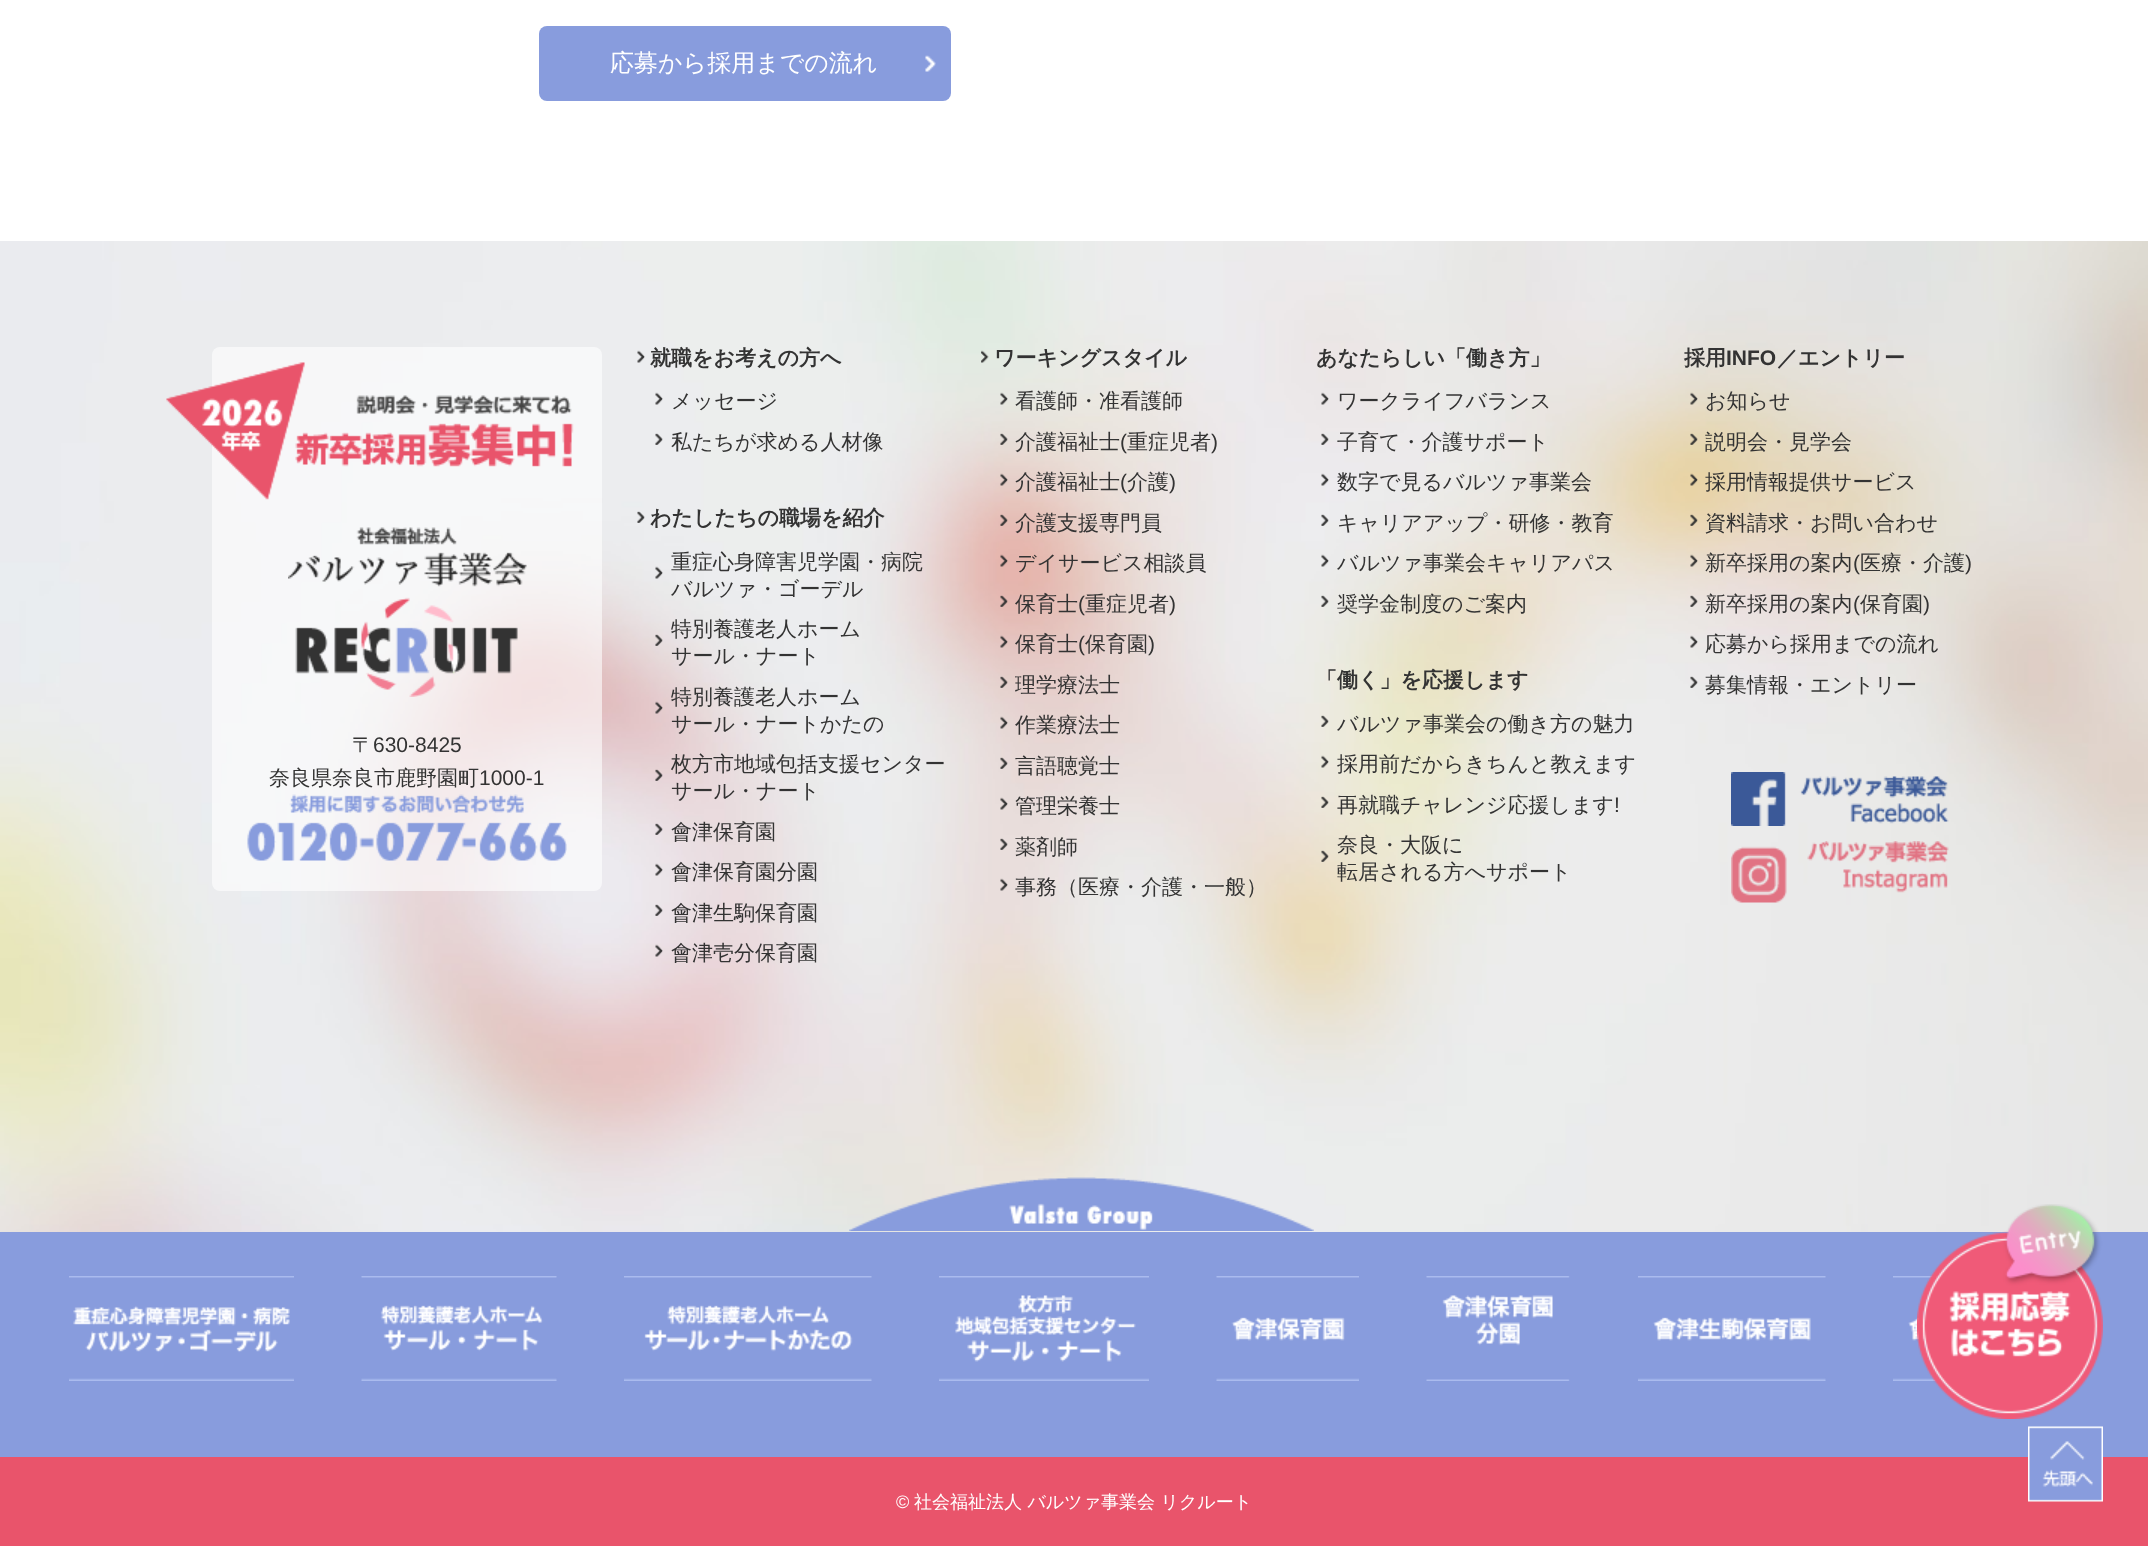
<svg xmlns="http://www.w3.org/2000/svg" width="2148" height="1546" viewBox="0 0 2148 1546">
  <rect width="100%" height="100%" fill="rgb(255,255,255)"/>
  <rect x="539" y="26" width="412" height="75" rx="8" fill="rgb(136,156,221)"/>
  <image x="925" y="55" width="11" height="17" href="pic1.png"/>
  <text x="610" y="71" font-family="WenQuanYi Zen Hei" font-size="24" font-weight="500" fill="rgb(255,255,255)">応募から採用までの流れ</text>
  <image x="0" y="241" width="2148" height="991" href="pic2.png"/>
  <image x="637" y="350" width="8" height="13" href="pic3.png"/>
  <text x="650" y="365" font-family="WenQuanYi Zen Hei" font-size="21" font-weight="bold" fill="rgb(51,51,51)">就職をお考えの方へ</text>
  <image x="655" y="392" width="8" height="13" href="pic3.png"/>
  <text x="671" y="408" font-family="WenQuanYi Zen Hei" font-size="21" font-weight="500" fill="rgb(51,51,51)">メッセージ</text>
  <image x="655" y="433" width="8" height="12" href="pic4.png"/>
  <text x="671" y="449" font-family="WenQuanYi Zen Hei" font-size="21" font-weight="500" fill="rgb(51,51,51)">私たちが求める人材像</text>
  <image x="637" y="511" width="8" height="12" href="pic5.png"/>
  <text x="650" y="525" font-family="WenQuanYi Zen Hei" font-size="21" font-weight="bold" fill="rgb(51,51,51)">わたしたちの職場を紹介</text>
  <image x="655" y="566" width="8" height="13" href="pic6.png"/>
  <g font-family="WenQuanYi Zen Hei" font-size="21" font-weight="500" fill="rgb(51,51,51)">
    <text>
      <tspan x="671" y="569">重症心身障害児学園・病院</tspan>
      <tspan x="671" y="596">バルツァ・ゴーデル</tspan>
    </text>
  </g>
  <image x="655" y="634" width="8" height="12" href="pic7.png"/>
  <g font-family="WenQuanYi Zen Hei" font-size="21" font-weight="500" fill="rgb(51,51,51)">
    <text>
      <tspan x="671" y="636">特別養護老人ホーム</tspan>
      <tspan x="671" y="663">サール・ナート</tspan>
    </text>
  </g>
  <image x="655" y="701" width="8" height="13" href="pic8.png"/>
  <g font-family="WenQuanYi Zen Hei" font-size="21" font-weight="500" fill="rgb(51,51,51)">
    <text>
      <tspan x="671" y="704">特別養護老人ホーム</tspan>
      <tspan x="671" y="731">サール・ナートかたの</tspan>
    </text>
  </g>
  <image x="655" y="769" width="8" height="12" href="pic9.png"/>
  <g font-family="WenQuanYi Zen Hei" font-size="21" font-weight="500" fill="rgb(51,51,51)">
    <text>
      <tspan x="671" y="771">枚方市地域包括支援センター</tspan>
      <tspan x="671" y="798">サール・ナート</tspan>
    </text>
  </g>
  <image x="655" y="823" width="8" height="12" href="pic10.png"/>
  <text x="671" y="839" font-family="WenQuanYi Zen Hei" font-size="21" font-weight="500" fill="rgb(51,51,51)">會津保育園</text>
  <image x="655" y="863" width="8" height="13" href="pic11.png"/>
  <text x="671" y="879" font-family="WenQuanYi Zen Hei" font-size="21" font-weight="500" fill="rgb(51,51,51)">會津保育園分園</text>
  <image x="655" y="904" width="8" height="12" href="pic12.png"/>
  <text x="671" y="920" font-family="WenQuanYi Zen Hei" font-size="21" font-weight="500" fill="rgb(51,51,51)">會津生駒保育園</text>
  <image x="655" y="944" width="8" height="13" href="pic13.png"/>
  <text x="671" y="960" font-family="WenQuanYi Zen Hei" font-size="21" font-weight="500" fill="rgb(51,51,51)">會津壱分保育園</text>
  <image x="981" y="350" width="8" height="13" href="pic14.png"/>
  <text x="994" y="365" font-family="WenQuanYi Zen Hei" font-size="21" font-weight="bold" fill="rgb(51,51,51)">ワーキングスタイル</text>
  <image x="1000" y="392" width="8" height="13" href="pic15.png"/>
  <text x="1015" y="408" font-family="WenQuanYi Zen Hei" font-size="21" font-weight="500" fill="rgb(51,51,51)">看護師・准看護師</text>
  <image x="1000" y="433" width="8" height="12" href="pic16.png"/>
  <text x="1015" y="449" font-family="WenQuanYi Zen Hei" font-size="21" font-weight="500" fill="rgb(51,51,51)">介護福祉士</text>
  <text x="1120" y="449" font-family="Liberation Sans" font-size="21" fill="rgb(51,51,51)">(</text>
  <text x="1127" y="449" font-family="WenQuanYi Zen Hei" font-size="21" font-weight="500" fill="rgb(51,51,51)">重症児者</text>
  <text x="1211" y="449" font-family="Liberation Sans" font-size="21" fill="rgb(51,51,51)">)</text>
  <image x="1000" y="473" width="8" height="13" href="pic17.png"/>
  <text x="1015" y="489" font-family="WenQuanYi Zen Hei" font-size="21" font-weight="500" fill="rgb(51,51,51)">介護福祉士</text>
  <text x="1120" y="489" font-family="Liberation Sans" font-size="21" fill="rgb(51,51,51)">(</text>
  <text x="1127" y="489" font-family="WenQuanYi Zen Hei" font-size="21" font-weight="500" fill="rgb(51,51,51)">介護</text>
  <text x="1169" y="489" font-family="Liberation Sans" font-size="21" fill="rgb(51,51,51)">)</text>
  <image x="1000" y="514" width="8" height="12" href="pic18.png"/>
  <text x="1015" y="530" font-family="WenQuanYi Zen Hei" font-size="21" font-weight="500" fill="rgb(51,51,51)">介護支援専門員</text>
  <image x="1000" y="554" width="8" height="13" href="pic19.png"/>
  <text x="1015" y="570" font-family="WenQuanYi Zen Hei" font-size="21" font-weight="500" fill="rgb(51,51,51)">デイサービス相談員</text>
  <image x="1000" y="595" width="8" height="12" href="pic20.png"/>
  <text x="1015" y="611" font-family="WenQuanYi Zen Hei" font-size="21" font-weight="500" fill="rgb(51,51,51)">保育士</text>
  <text x="1078" y="611" font-family="Liberation Sans" font-size="21" fill="rgb(51,51,51)">(</text>
  <text x="1085" y="611" font-family="WenQuanYi Zen Hei" font-size="21" font-weight="500" fill="rgb(51,51,51)">重症児者</text>
  <text x="1169" y="611" font-family="Liberation Sans" font-size="21" fill="rgb(51,51,51)">)</text>
  <image x="1000" y="635" width="8" height="13" href="pic21.png"/>
  <text x="1015" y="651" font-family="WenQuanYi Zen Hei" font-size="21" font-weight="500" fill="rgb(51,51,51)">保育士</text>
  <text x="1078" y="651" font-family="Liberation Sans" font-size="21" fill="rgb(51,51,51)">(</text>
  <text x="1085" y="651" font-family="WenQuanYi Zen Hei" font-size="21" font-weight="500" fill="rgb(51,51,51)">保育園</text>
  <text x="1148" y="651" font-family="Liberation Sans" font-size="21" fill="rgb(51,51,51)">)</text>
  <image x="1000" y="676" width="8" height="12" href="pic22.png"/>
  <text x="1015" y="692" font-family="WenQuanYi Zen Hei" font-size="21" font-weight="500" fill="rgb(51,51,51)">理学療法士</text>
  <image x="1000" y="716" width="8" height="13" href="pic23.png"/>
  <text x="1015" y="732" font-family="WenQuanYi Zen Hei" font-size="21" font-weight="500" fill="rgb(51,51,51)">作業療法士</text>
  <image x="1000" y="757" width="8" height="12" href="pic24.png"/>
  <text x="1015" y="773" font-family="WenQuanYi Zen Hei" font-size="21" font-weight="500" fill="rgb(51,51,51)">言語聴覚士</text>
  <image x="1000" y="797" width="8" height="13" href="pic25.png"/>
  <text x="1015" y="813" font-family="WenQuanYi Zen Hei" font-size="21" font-weight="500" fill="rgb(51,51,51)">管理栄養士</text>
  <image x="1000" y="838" width="8" height="12" href="pic26.png"/>
  <text x="1015" y="854" font-family="WenQuanYi Zen Hei" font-size="21" font-weight="500" fill="rgb(51,51,51)">薬剤師</text>
  <image x="1000" y="878" width="8" height="13" href="pic27.png"/>
  <text x="1015" y="894" font-family="WenQuanYi Zen Hei" font-size="21" font-weight="500" fill="rgb(51,51,51)">事務（医療・介護・一般）</text>
  <text x="1316" y="365" font-family="WenQuanYi Zen Hei" font-size="21" font-weight="bold" fill="rgb(51,51,51)">あなたらしい「働き方」</text>
  <image x="1321" y="392" width="8" height="13" href="pic28.png"/>
  <text x="1337" y="408" font-family="WenQuanYi Zen Hei" font-size="21" font-weight="500" fill="rgb(51,51,51)">ワークライフバランス</text>
  <image x="1321" y="433" width="8" height="12" href="pic29.png"/>
  <text x="1337" y="449" font-family="WenQuanYi Zen Hei" font-size="21" font-weight="500" fill="rgb(51,51,51)">子育て・介護サポート</text>
  <image x="1321" y="473" width="8" height="13" href="pic30.png"/>
  <text x="1337" y="489" font-family="WenQuanYi Zen Hei" font-size="21" font-weight="500" fill="rgb(51,51,51)">数字で見るバルツァ事業会</text>
  <image x="1321" y="514" width="8" height="12" href="pic31.png"/>
  <text x="1337" y="530" font-family="WenQuanYi Zen Hei" font-size="21" font-weight="500" fill="rgb(51,51,51)">キャリアアップ・研修・教育</text>
  <image x="1321" y="554" width="8" height="13" href="pic32.png"/>
  <text x="1337" y="570" font-family="WenQuanYi Zen Hei" font-size="21" font-weight="500" fill="rgb(51,51,51)">バルツァ事業会キャリアパス</text>
  <image x="1321" y="595" width="8" height="12" href="pic33.png"/>
  <text x="1337" y="611" font-family="WenQuanYi Zen Hei" font-size="21" font-weight="500" fill="rgb(51,51,51)">奨学金制度のご案内</text>
  <text x="1316" y="687" font-family="WenQuanYi Zen Hei" font-size="21" font-weight="bold" fill="rgb(51,51,51)">「働く」を応援します</text>
  <image x="1321" y="715" width="8" height="12" href="pic34.png"/>
  <text x="1337" y="731" font-family="WenQuanYi Zen Hei" font-size="21" font-weight="500" fill="rgb(51,51,51)">バルツァ事業会の働き方の魅力</text>
  <image x="1321" y="755" width="8" height="13" href="pic35.png"/>
  <text x="1337" y="771" font-family="WenQuanYi Zen Hei" font-size="21" font-weight="500" fill="rgb(51,51,51)">採用前だからきちんと教えます</text>
  <image x="1321" y="796" width="8" height="12" href="pic36.png"/>
  <text x="1337" y="812" font-family="WenQuanYi Zen Hei" font-size="21" font-weight="500" fill="rgb(51,51,51)">再就職チャレンジ応援します</text>
  <text x="1614" y="812" font-family="Liberation Sans" font-size="21" fill="rgb(51,51,51)">!</text>
  <image x="1321" y="850" width="8" height="12" href="pic37.png"/>
  <g font-family="WenQuanYi Zen Hei" font-size="21" font-weight="500" fill="rgb(51,51,51)">
    <text>
      <tspan x="1337" y="852">奈良・大阪に</tspan>
      <tspan x="1337" y="879">転居される方へサポート</tspan>
    </text>
  </g>
  <text x="1684" y="365" font-family="WenQuanYi Zen Hei" font-size="21" font-weight="bold" fill="rgb(51,51,51)">採用</text>
  <text x="1726" y="365" font-family="Liberation Sans" font-size="21" font-weight="bold" fill="rgb(51,51,51)">INFO</text>
  <text x="1777" y="365" font-family="WenQuanYi Zen Hei" font-size="21" font-weight="bold" fill="rgb(51,51,51)">／エントリー</text>
  <image x="1690" y="392" width="8" height="13" href="pic38.png"/>
  <text x="1705" y="408" font-family="WenQuanYi Zen Hei" font-size="21" font-weight="500" fill="rgb(51,51,51)">お知らせ</text>
  <image x="1690" y="433" width="8" height="12" href="pic39.png"/>
  <text x="1705" y="449" font-family="WenQuanYi Zen Hei" font-size="21" font-weight="500" fill="rgb(51,51,51)">説明会・見学会</text>
  <image x="1690" y="473" width="8" height="13" href="pic40.png"/>
  <text x="1705" y="489" font-family="WenQuanYi Zen Hei" font-size="21" font-weight="500" fill="rgb(51,51,51)">採用情報提供サービス</text>
  <image x="1690" y="514" width="8" height="12" href="pic41.png"/>
  <text x="1705" y="530" font-family="WenQuanYi Zen Hei" font-size="21" font-weight="500" fill="rgb(51,51,51)">資料請求・お問い合わせ</text>
  <image x="1690" y="554" width="8" height="13" href="pic42.png"/>
  <text x="1705" y="570" font-family="WenQuanYi Zen Hei" font-size="21" font-weight="500" fill="rgb(51,51,51)">新卒採用の案内</text>
  <text x="1853" y="570" font-family="Liberation Sans" font-size="21" fill="rgb(51,51,51)">(</text>
  <text x="1860" y="570" font-family="WenQuanYi Zen Hei" font-size="21" font-weight="500" fill="rgb(51,51,51)">医療・介護</text>
  <text x="1965" y="570" font-family="Liberation Sans" font-size="21" fill="rgb(51,51,51)">)</text>
  <image x="1690" y="595" width="8" height="12" href="pic43.png"/>
  <text x="1705" y="611" font-family="WenQuanYi Zen Hei" font-size="21" font-weight="500" fill="rgb(51,51,51)">新卒採用の案内</text>
  <text x="1853" y="611" font-family="Liberation Sans" font-size="21" fill="rgb(51,51,51)">(</text>
  <text x="1860" y="611" font-family="WenQuanYi Zen Hei" font-size="21" font-weight="500" fill="rgb(51,51,51)">保育園</text>
  <text x="1923" y="611" font-family="Liberation Sans" font-size="21" fill="rgb(51,51,51)">)</text>
  <image x="1690" y="635" width="8" height="13" href="pic44.png"/>
  <text x="1705" y="651" font-family="WenQuanYi Zen Hei" font-size="21" font-weight="500" fill="rgb(51,51,51)">応募から採用までの流れ</text>
  <image x="1690" y="676" width="8" height="12" href="pic45.png"/>
  <text x="1705" y="692" font-family="WenQuanYi Zen Hei" font-size="21" font-weight="500" fill="rgb(51,51,51)">募集情報・エントリー</text>
  <image x="1731" y="772" width="218" height="54" href="pic46.png"/>
  <image x="1731" y="841" width="218" height="62" href="pic47.png"/>
  <rect x="212" y="347" width="390" height="544" rx="8" fill="rgba(255,255,255,0.6)"/>
  <image x="166" y="362" width="408" height="138" href="pic48.png"/>
  <image x="288" y="527" width="239" height="170" href="pic49.png"/>
  <text x="352" y="752" font-family="WenQuanYi Zen Hei" font-size="21" font-weight="500" fill="rgb(51,51,51)">〒</text>
  <text x="373" y="752" font-family="Liberation Sans" font-size="21" fill="rgb(51,51,51)">630-8425</text>
  <text x="269" y="785" font-family="WenQuanYi Zen Hei" font-size="21" font-weight="500" fill="rgb(51,51,51)">奈良県奈良市鹿野園町</text>
  <text x="479" y="785" font-family="Liberation Sans" font-size="21" fill="rgb(51,51,51)">1000-1</text>
  <image x="247" y="794" width="320" height="67" href="pic50.png"/>
  <rect x="0" y="1232" width="2148" height="225" fill="rgb(136,156,221)"/>
  <image x="849" y="1177" width="465" height="54" href="pic51.png"/>
  <image x="69" y="1276" width="225" height="105" href="pic52.png"/>
  <image x="361" y="1276" width="196" height="105" href="pic53.png"/>
  <image x="624" y="1276" width="248" height="105" href="pic54.png"/>
  <image x="939" y="1276" width="210" height="105" href="pic55.png"/>
  <image x="1216" y="1276" width="143" height="105" href="pic56.png"/>
  <image x="1426" y="1276" width="144" height="105" href="pic57.png"/>
  <image x="1638" y="1276" width="188" height="105" href="pic58.png"/>
  <image x="1893" y="1276" width="188" height="105" href="pic59.png"/>
  <image x="1917" y="1204" width="186" height="215" href="pic60.png"/>
  <rect x="0" y="1457" width="2148" height="89" fill="rgb(233,84,107)"/>
  <text x="896" y="1508" font-family="Liberation Sans" font-size="18" fill="rgb(255,255,255)">©</text>
  <text x="914" y="1508" font-family="WenQuanYi Zen Hei" font-size="18" font-weight="500" fill="rgb(255,255,255)">社会福祉法人 バルツァ事業会 リクルート</text>
  <image x="2028" y="1426" width="75" height="76" href="pic61.png"/>
</svg>
